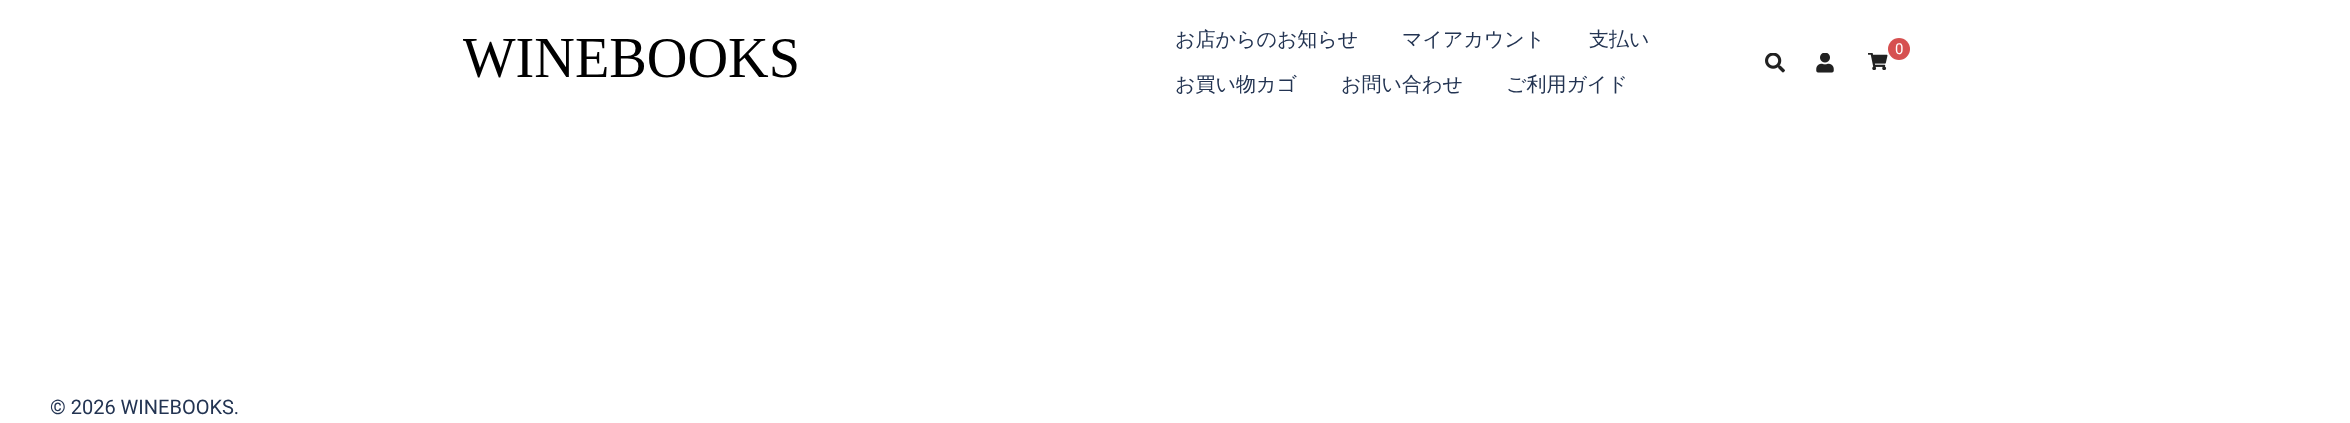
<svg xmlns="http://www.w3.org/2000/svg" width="2350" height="423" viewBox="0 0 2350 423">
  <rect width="100%" height="100%" fill="rgb(255,255,255)"/>
  <image x="463" y="39" width="334" height="39" href="pic1.png"/>
  <g font-family="WenQuanYi Zen Hei" font-size="20" font-weight="500" fill="rgb(35,52,82)">
    <text x="1175" y="46">お店からのお知らせ</text>
    <text x="1402" y="46">マイアカウント</text>
    <text x="1589" y="46">支払い</text>
    <text x="1175" y="91">お買い物カゴ</text>
    <text x="1341" y="91">お問い合わせ</text>
    <text x="1506" y="91">ご利用ガイド</text>
  </g>
  <circle cx="1899" cy="49" r="11" fill="rgb(214,80,80)"/>
  <text x="1895" y="54" font-family="Roboto" font-size="15" fill="rgb(255,255,255)">0</text>
  <image x="1868" y="53" width="20" height="17" href="pic2.png"/>
  <image x="1816" y="53" width="18" height="20" href="pic3.png"/>
  <image x="1765" y="53" width="20" height="20" href="pic4.png"/>
  <text x="50" y="414" font-family="Roboto" font-size="20" fill="rgb(35,52,82)">© 2026 WINEBOOKS.</text>
</svg>
